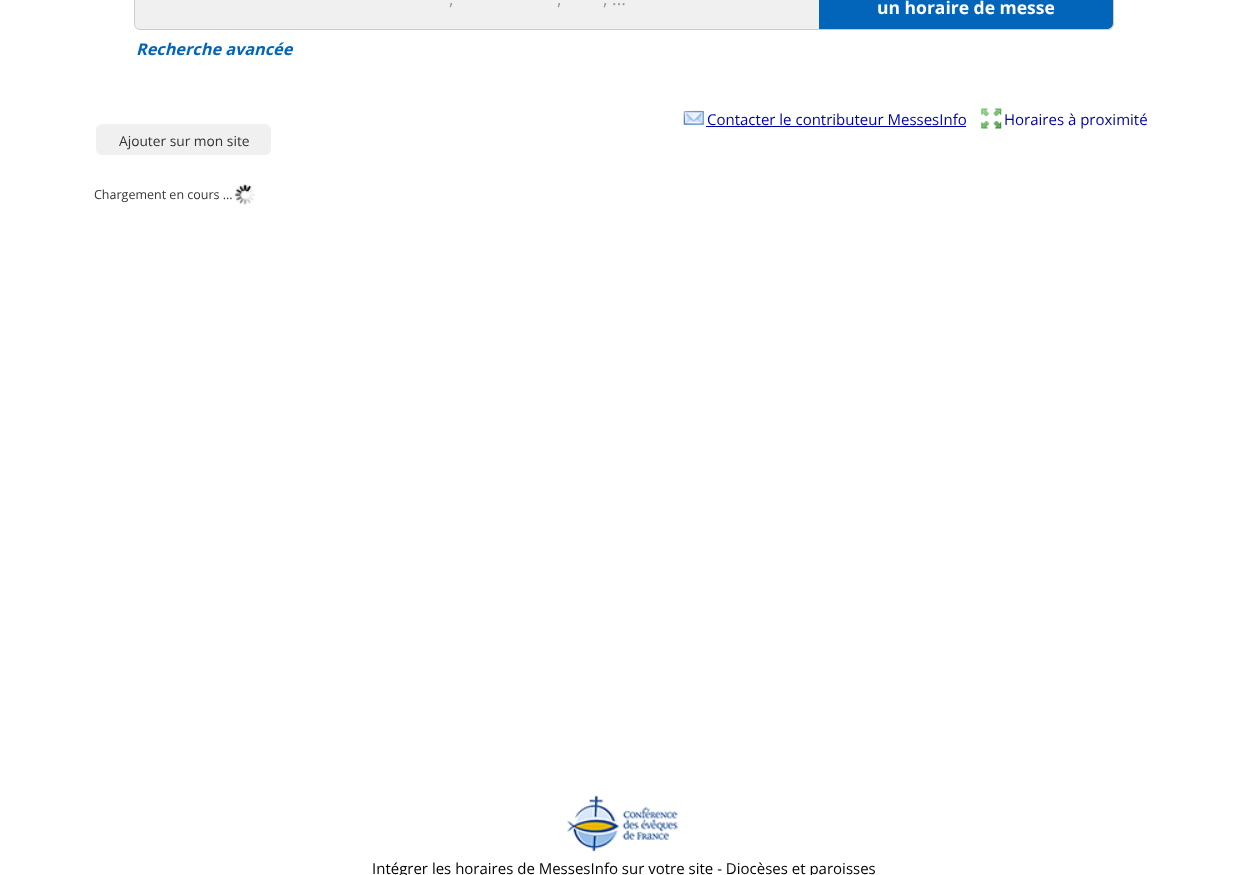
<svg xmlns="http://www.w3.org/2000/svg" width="1247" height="875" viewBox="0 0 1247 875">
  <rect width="100%" height="100%" fill="rgb(255,255,255)"/>
  <rect x="134.5" y="-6.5" width="979" height="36" rx="5.5" fill="rgb(240,240,240)" stroke="rgb(204,204,204)"/>
  <g font-family="Open Sans" font-size="17.5" fill="rgb(153,153,153)">
    <text x="449" y="5">,</text>
    <text x="557" y="5">,</text>
    <text x="603" y="5">, ...</text>
  </g>
  <path d="M819-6H1107C1110.5-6 1113-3.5 1113 0V23C1113 26.5 1110.5 29 1107 29H819Z" fill="rgb(2,101,186)"/>
  <text x="877" y="14" font-family="Open Sans" font-size="17.5" font-weight="bold" fill="rgb(255,255,255)">un horaire de messe</text>
  <text x="136" y="55" font-family="Open Sans" font-size="16.25" font-weight="bold" font-style="italic" fill="rgb(2,101,186)">Recherche avancée</text>
  <image x="683" y="110" width="21" height="15" href="pic1.png"/>
  <text x="707" y="125" font-family="Open Sans" font-size="15" fill="rgb(0,0,170)">Contacter le contributeur MessesInfo</text>
  <rect x="706" y="126" width="260" height="1" fill="rgb(0,0,170)"/>
  <image x="981" y="108" width="21" height="21" href="pic2.png"/>
  <text x="1004" y="125" font-family="Open Sans" font-size="15" fill="rgb(0,0,170)">Horaires à proximité</text>
  <rect x="96" y="124" width="175" height="31" rx="6" fill="rgb(240,240,240)"/>
  <text x="119" y="146" font-family="Open Sans" font-size="13.75" fill="rgb(53,52,52)">Ajouter sur mon site</text>
  <text x="94" y="199" font-family="Open Sans" font-size="12.5" fill="rgb(53,52,52)">Chargement en cours ...</text>
  <image x="235" y="184" width="20" height="21" href="pic3.png"/>
  <image x="567" y="795" width="111" height="57" href="pic4.png"/>
  <text x="372" y="874" font-family="Open Sans" font-size="15" fill="rgb(0,0,0)">Intégrer les horaires de MessesInfo sur votre site - Diocèses et paroisses</text>
</svg>
